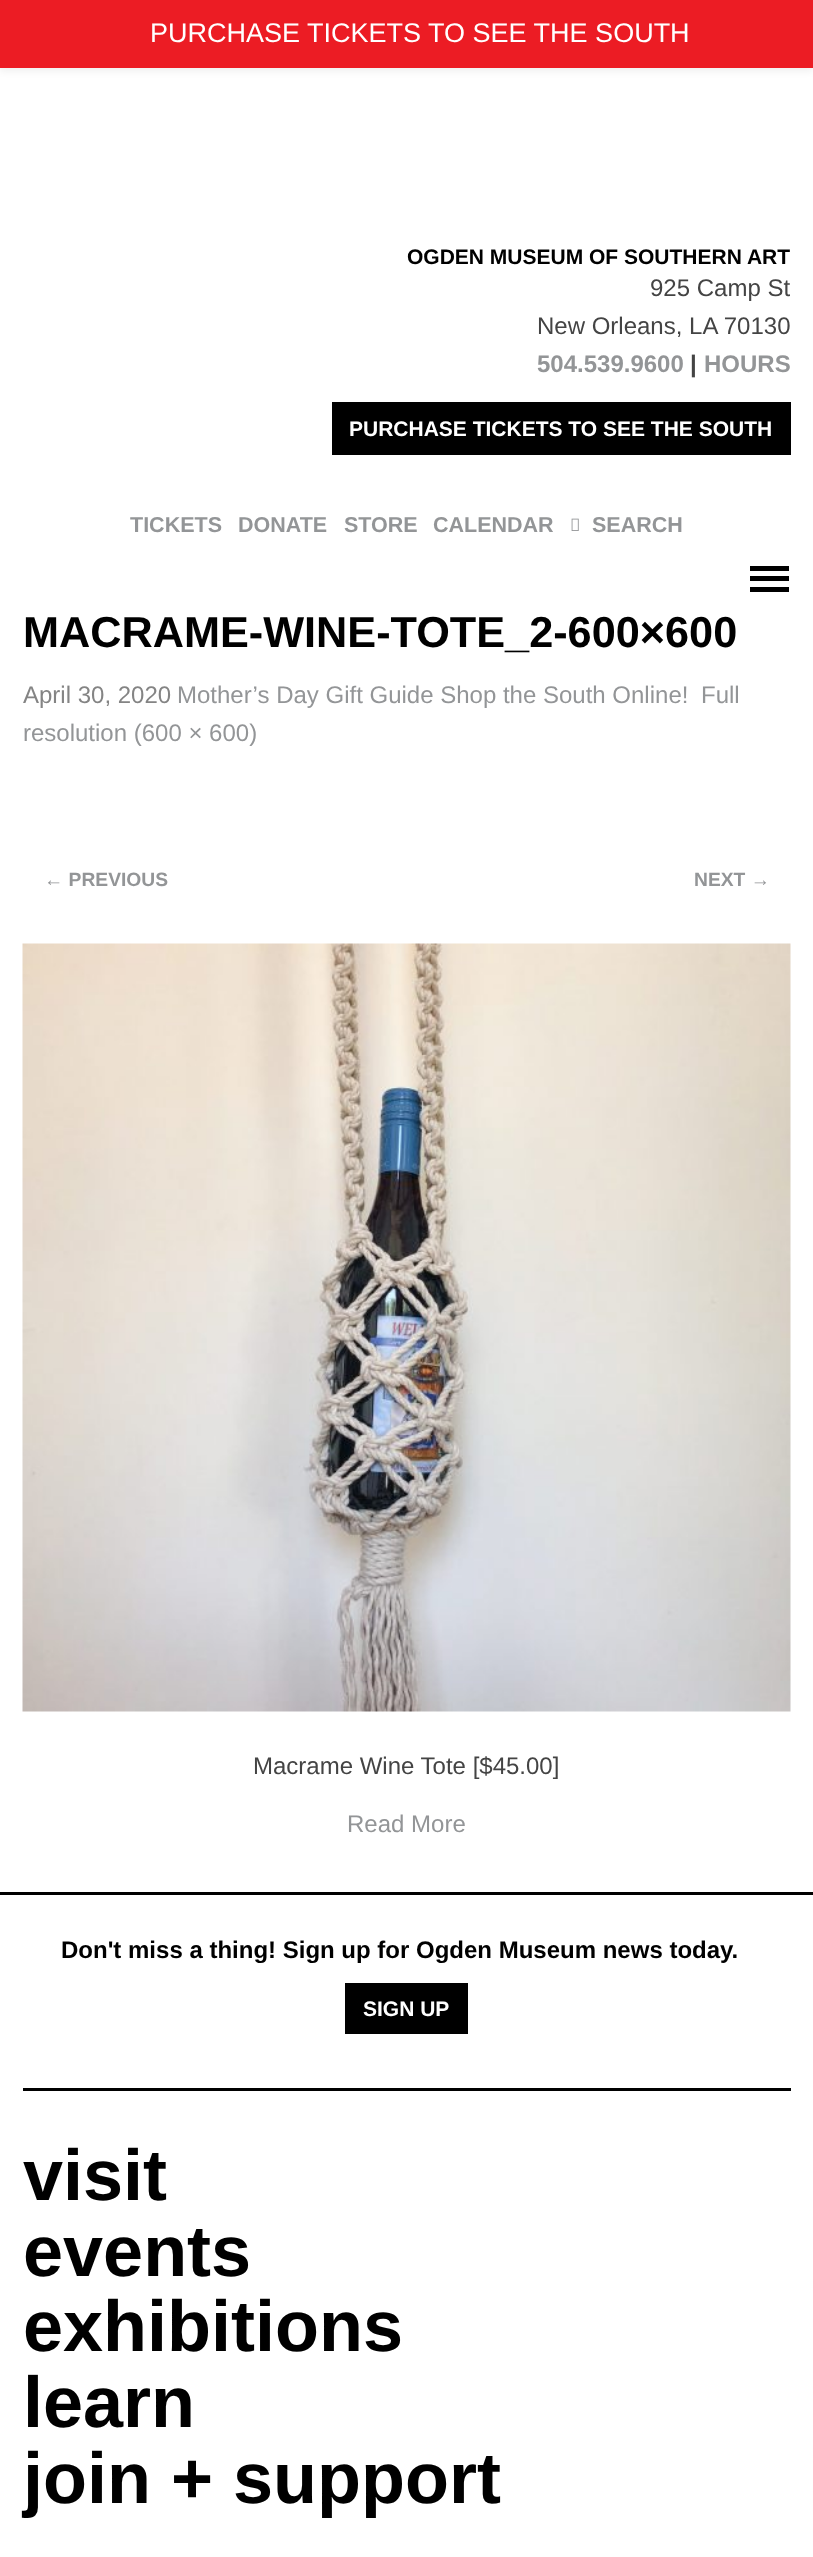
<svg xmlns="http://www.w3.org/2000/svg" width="813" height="2557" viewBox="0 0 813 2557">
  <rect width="100%" height="100%" fill="rgb(255,255,255)"/>
  <rect x="0" y="5" width="813" height="67" fill="rgba(0,0,0,0.05)" filter="blur(3px)"/>
  <rect x="0" y="0" width="813" height="68" fill="rgb(236,28,36)"/>
  <text x="150" y="42" font-family="Liberation Sans" font-size="27" fill="rgb(255,255,255)">PURCHASE TICKETS TO SEE THE SOUTH</text>
  <text x="407" y="264" font-family="Liberation Sans" font-size="21" font-weight="bold" fill="rgb(0,0,0)">OGDEN MUSEUM OF SOUTHERN ART</text>
  <g font-family="Liberation Sans" font-size="24" fill="rgb(68,68,68)">
    <text x="650" y="296">925 Camp St</text>
    <text x="537" y="334">New Orleans, LA 70130</text>
  </g>
  <text x="537" y="372" font-family="Liberation Sans" font-size="24" font-weight="bold" fill="rgb(147,149,151)">504.539.9600</text>
  <text x="690" y="372" font-family="Liberation Sans" font-size="24" font-weight="bold" fill="rgb(68,68,68)">|</text>
  <text x="704" y="372" font-family="Liberation Sans" font-size="24" font-weight="bold" fill="rgb(147,149,151)">HOURS</text>
  <rect x="332" y="402" width="459" height="53" fill="rgb(0,0,0)"/>
  <text x="349" y="436" font-family="Liberation Sans" font-size="21" font-weight="bold" fill="rgb(255,255,255)">PURCHASE TICKETS TO SEE THE SOUTH</text>
  <g font-family="Liberation Sans" font-size="21.5" font-weight="bold" fill="rgb(147,149,151)">
    <text x="130" y="532">TICKETS</text>
    <text x="238" y="532">DONATE</text>
    <text x="344" y="532">STORE</text>
    <text x="433" y="532">CALENDAR</text>
  </g>
  <image x="571" y="518" width="8" height="13" href="pic1.png"/>
  <text x="592" y="532" font-family="Liberation Sans" font-size="21.5" font-weight="bold" fill="rgb(147,149,151)">SEARCH</text>
  <rect x="750" y="566" width="39" height="5" fill="rgb(0,0,0)"/>
  <rect x="750" y="576" width="39" height="5" fill="rgb(0,0,0)"/>
  <rect x="750" y="587" width="39" height="5" fill="rgb(0,0,0)"/>
  <text x="23" y="647" font-family="Liberation Sans" font-size="43.25" font-weight="bold" fill="rgb(0,0,0)">MACRAME-WINE-TOTE_2-600×600</text>
  <text x="23" y="703" font-family="Liberation Sans" font-size="24" fill="rgb(132,132,132)">April 30, 2020</text>
  <g font-family="Liberation Sans" font-size="24" fill="rgb(147,149,151)">
    <text x="177" y="703">Mother’s Day Gift Guide Shop the South Online!</text>
    <text x="701" y="703">Full</text>
    <text x="23" y="741">resolution (600 × 600)</text>
  </g>
  <g font-family="Liberation Sans" font-size="19.25" font-weight="bold" fill="rgb(147,149,151)">
    <text x="44" y="886">← PREVIOUS</text>
    <text x="694" y="886">NEXT →</text>
  </g>
  <image x="22" y="943" width="769" height="769" href="pic2.png"/>
  <text x="253" y="1774" font-family="Liberation Sans" font-size="24" fill="rgb(68,68,68)">Macrame Wine Tote [$45.00]</text>
  <text x="347" y="1832" font-family="Liberation Sans" font-size="24" fill="rgb(147,149,151)">Read More</text>
  <rect x="0" y="1892" width="813" height="3" fill="rgb(0,0,0)"/>
  <text x="61" y="1958" font-family="Liberation Sans" font-size="24" font-weight="bold" fill="rgb(0,0,0)">Don't miss a thing! Sign up for Ogden Museum news today.</text>
  <rect x="345" y="1983" width="123" height="51" fill="rgb(0,0,0)"/>
  <text x="363" y="2016" font-family="Liberation Sans" font-size="21" font-weight="bold" fill="rgb(255,255,255)">SIGN UP</text>
  <rect x="23" y="2088" width="768" height="3" fill="rgb(0,0,0)"/>
  <g font-family="Liberation Sans" font-size="72" font-weight="bold" fill="rgb(0,0,0)">
    <text>
      <tspan x="23" y="2200">visit</tspan>
      <tspan x="23" y="2276">events</tspan>
      <tspan x="23" y="2351">exhibitions</tspan>
      <tspan x="23" y="2427">learn</tspan>
      <tspan x="23" y="2503">join + support</tspan>
    </text>
  </g>
</svg>
